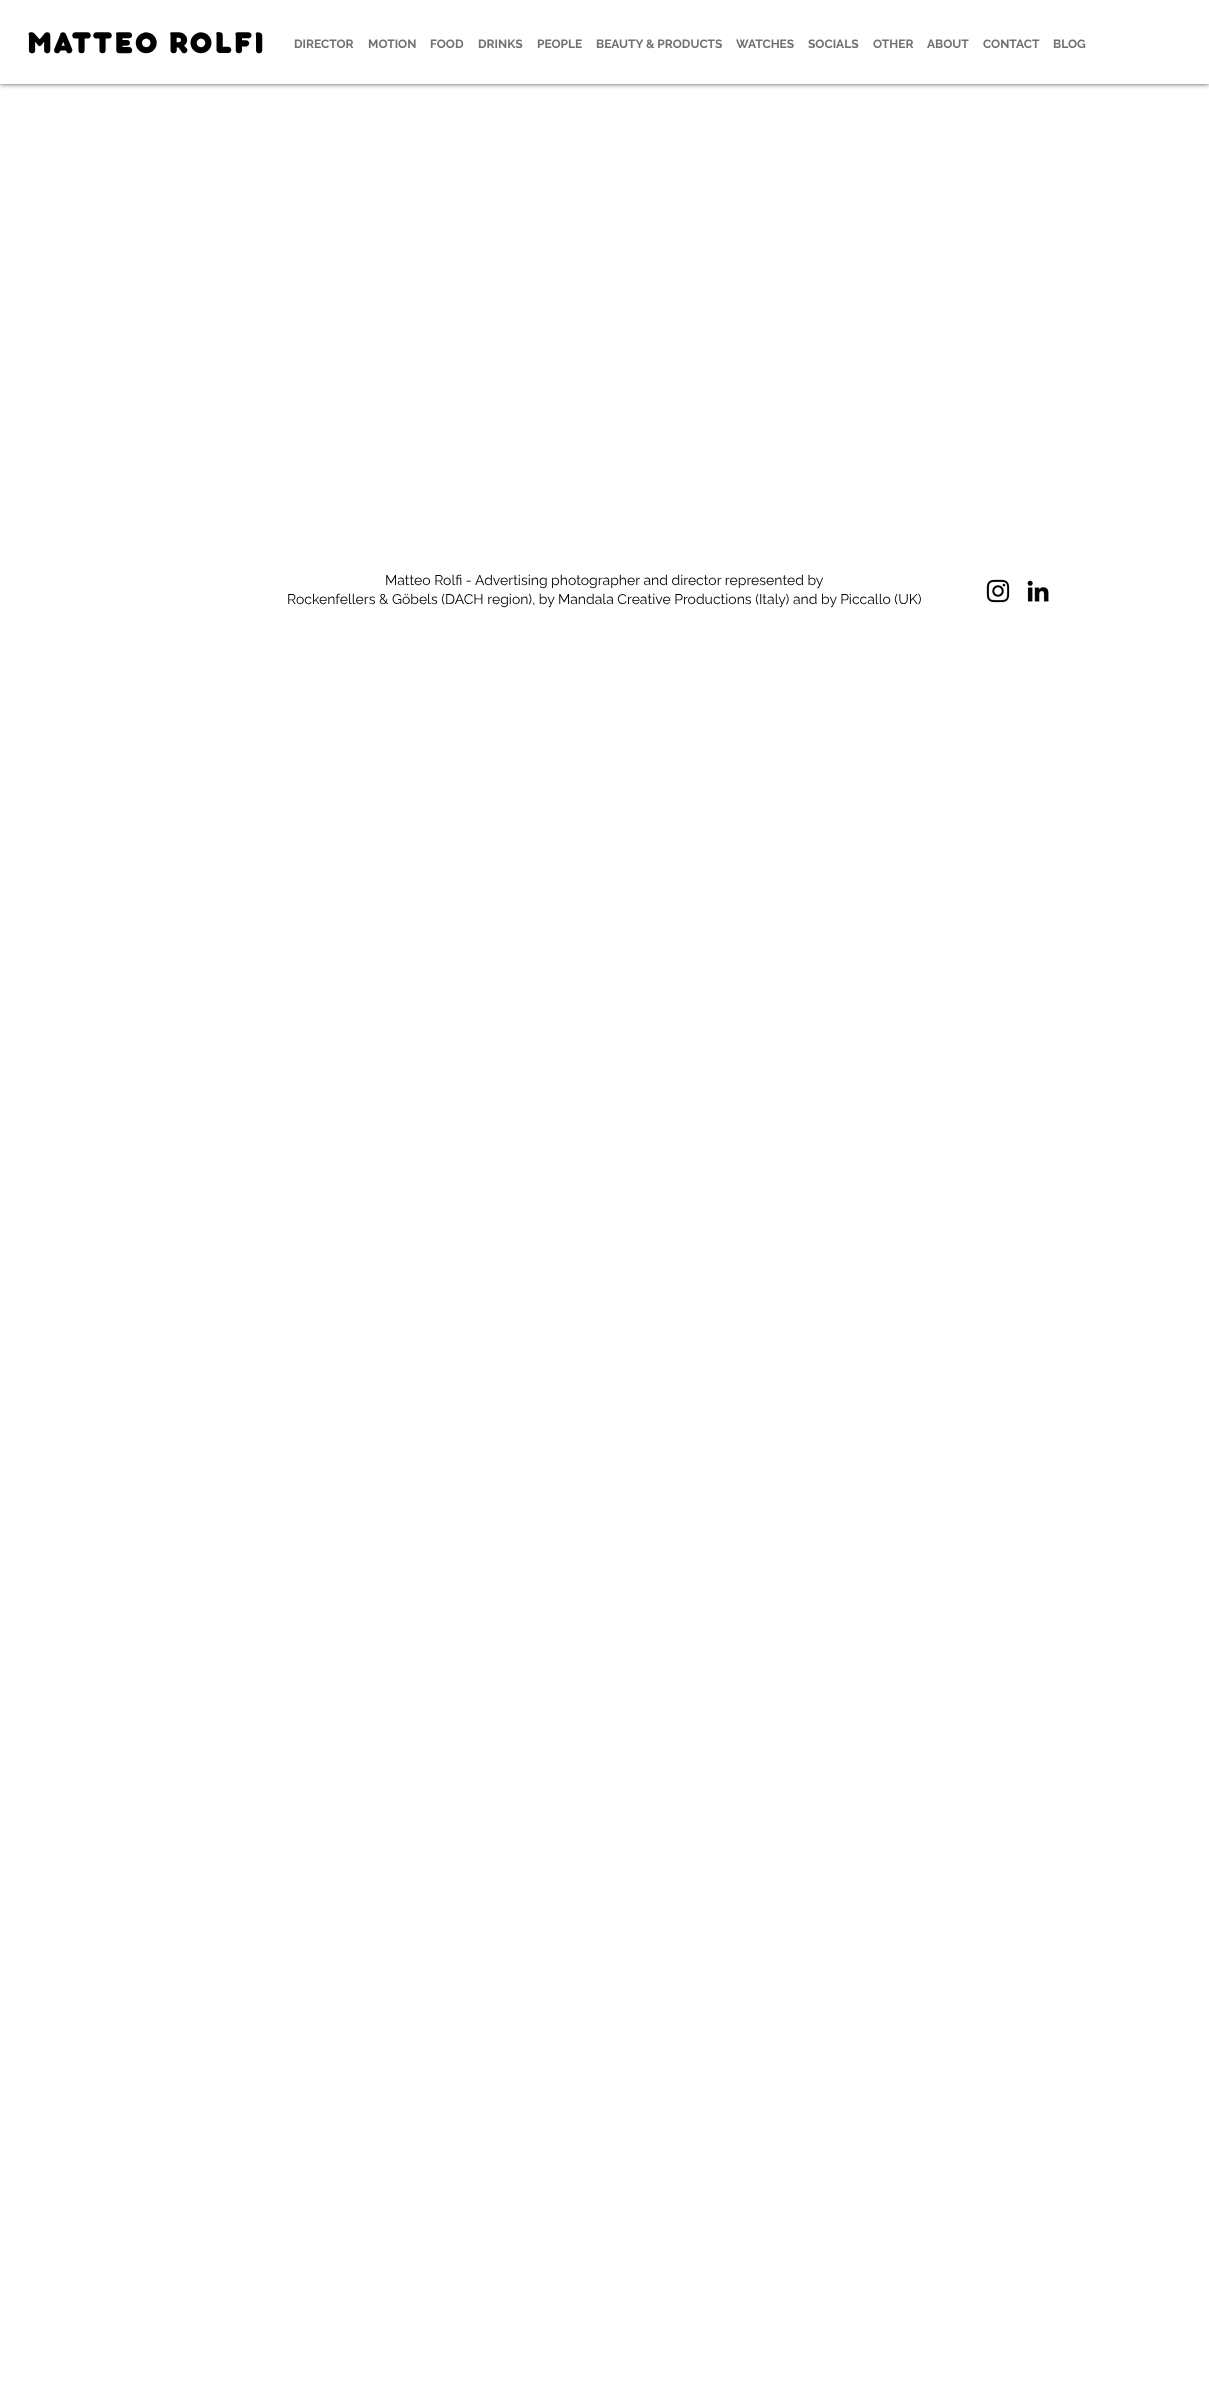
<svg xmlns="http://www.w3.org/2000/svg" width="1209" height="2391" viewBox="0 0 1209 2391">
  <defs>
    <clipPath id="clip1"><rect x="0" y="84" width="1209" height="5"/></clipPath>
  </defs>
  <rect width="100%" height="100%" fill="rgb(255,255,255)"/>
  <g clip-path="url(#clip1)">
    <rect x="0" y="0" width="1209" height="84" fill="rgba(0,0,0,0.7)" filter="blur(2.5px)"/>
  </g>
  <text x="27" y="53" font-family="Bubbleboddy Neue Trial" font-size="32" font-weight="800" letter-spacing="1.6" fill="rgb(0,0,0)">MATTEO ROLFI</text>
  <g font-family="Raleway" font-size="12" font-weight="bold" fill="rgb(113,113,113)">
    <text x="294" y="48">DIRECTOR</text>
    <text x="368" y="48">MOTION</text>
    <text x="430" y="48">FOOD</text>
    <text x="478" y="48">DRINKS</text>
    <text x="537" y="48">PEOPLE</text>
    <text x="596" y="48">BEAUTY &amp; PRODUCTS</text>
    <text x="736" y="48">WATCHES</text>
    <text x="808" y="48">SOCIALS</text>
    <text x="873" y="48">OTHER</text>
    <text x="927" y="48">ABOUT</text>
    <text x="983" y="48">CONTACT</text>
    <text x="1053" y="48">BLOG</text>
  </g>
  <g font-family="Raleway" font-size="14" fill="rgb(0,0,0)">
    <text x="385" y="585">Matteo Rolfi - Advertising photographer and director represented by</text>
    <text x="287" y="604">Rockenfellers &amp; Göbels (DACH region), by Mandala Creative Productions (Italy) and by Piccallo (UK)</text>
  </g>
  <image x="986" y="579" width="24" height="24" href="pic1.png"/>
  <image x="1027" y="580" width="22" height="22" href="pic2.png"/>
</svg>
